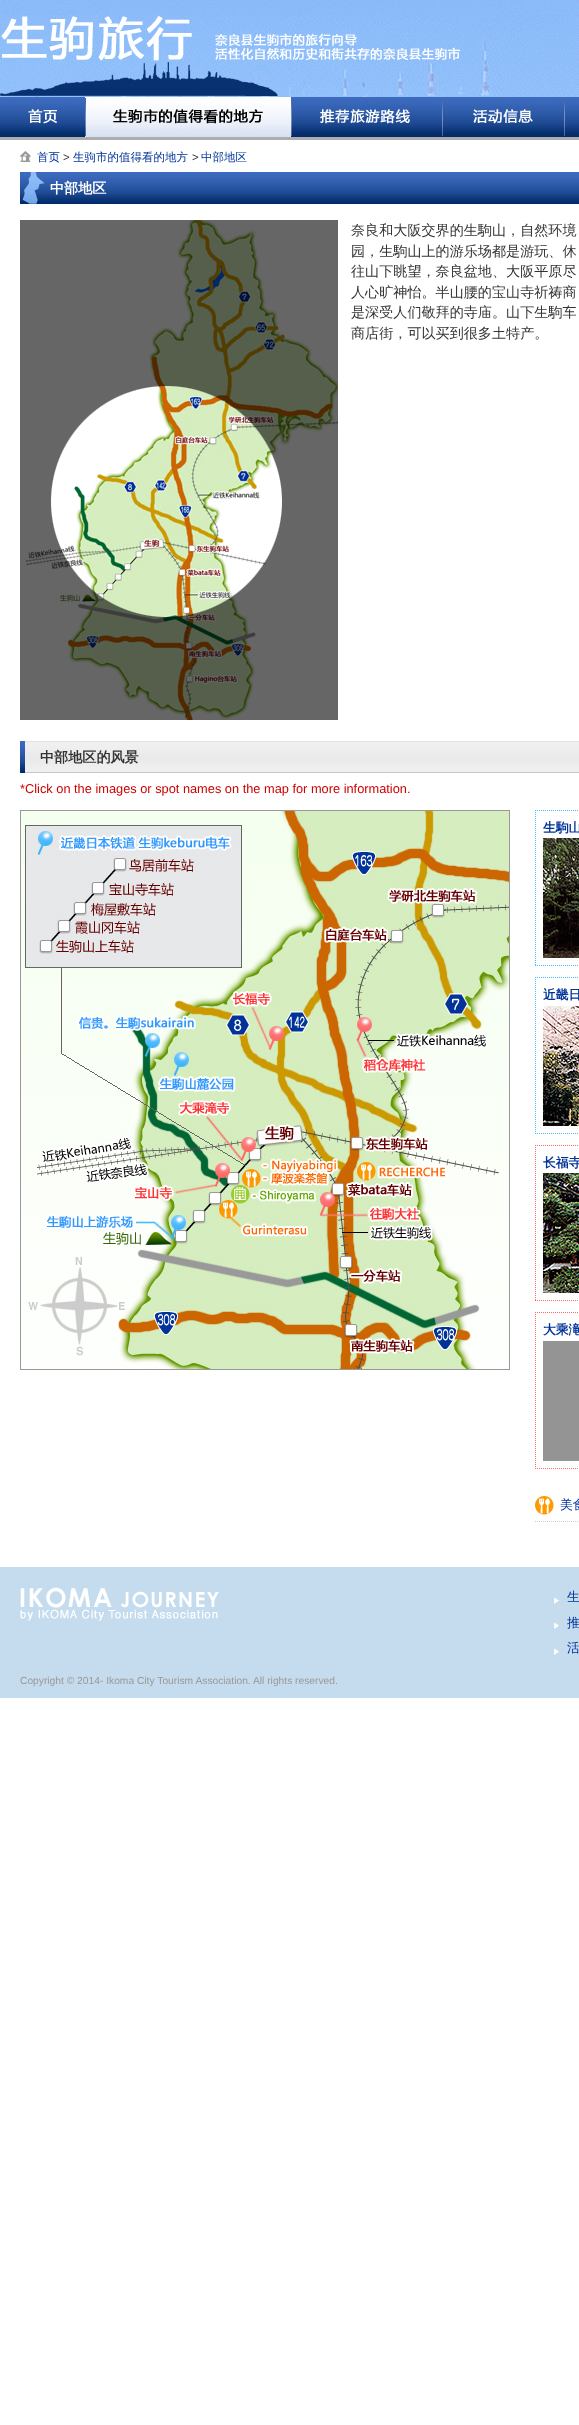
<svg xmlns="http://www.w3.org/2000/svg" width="579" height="2425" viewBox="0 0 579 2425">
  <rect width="100%" height="100%" fill="rgb(255,255,255)"/>
  <image x="0" y="0" width="579" height="97" href="pic1.png"/>
  <image x="0" y="15" width="579" height="81" href="pic2.png"/>
  <image x="0" y="97" width="85" height="40" href="pic3.png"/>
  <image x="85" y="97" width="206" height="40" href="pic4.png"/>
  <image x="291" y="97" width="151" height="40" href="pic5.png"/>
  <image x="442" y="97" width="122" height="40" href="pic6.png"/>
  <image x="564" y="97" width="15" height="40" href="pic7.png"/>
  <rect x="0" y="137" width="579" height="3" fill="rgb(173,173,173)"/>
  <image x="20" y="151" width="11" height="11" href="pic8.png"/>
  <text x="37" y="161" font-family="WenQuanYi Zen Hei" font-size="11.5" font-weight="500" fill="rgb(0,51,153)">首页</text>
  <text x="63" y="161" font-family="Liberation Sans" font-size="11.5" fill="rgb(51,51,51)">&gt;</text>
  <text x="73" y="161" font-family="WenQuanYi Zen Hei" font-size="11.5" font-weight="500" fill="rgb(0,51,153)">生驹市的值得看的地方</text>
  <text x="192" y="161" font-family="Liberation Sans" font-size="11.5" fill="rgb(51,51,51)">&gt;</text>
  <text x="201" y="161" font-family="WenQuanYi Zen Hei" font-size="11.5" font-weight="500" fill="rgb(0,51,153)">中部地区</text>
  <image x="20" y="172" width="559" height="32" href="pic9.png"/>
  <text x="50" y="193" font-family="WenQuanYi Zen Hei" font-size="14.1" font-weight="bold" fill="rgb(255,255,255)">中部地区</text>
  <image x="20" y="220" width="318" height="500" href="pic10.png"/>
  <g font-family="WenQuanYi Zen Hei" font-size="14.1" font-weight="500" fill="rgb(51,51,51)">
    <text>
      <tspan x="351" y="235">奈良和大阪交界的生駒山，自然环境</tspan>
      <tspan x="351" y="256">园，生駒山上的游乐场都是游玩、休</tspan>
      <tspan x="351" y="276">往山下眺望，奈良盆地、大阪平原尽</tspan>
      <tspan x="351" y="297">人心旷神怡。半山腰的宝山寺祈祷商</tspan>
      <tspan x="351" y="317">是深受人们敬拜的寺庙。山下生駒车</tspan>
      <tspan x="351" y="338">商店街，可以买到很多土特产。</tspan>
    </text>
  </g>
  <image x="20" y="741" width="559" height="32" href="pic11.png"/>
  <text x="40" y="762" font-family="WenQuanYi Zen Hei" font-size="14.1" font-weight="bold" fill="rgb(51,51,51)">中部地区的风景</text>
  <text x="20" y="793" font-family="Liberation Sans" font-size="12.8" fill="rgb(204,0,0)">*Click on the images or spot names on the map for more information.</text>
  <rect x="20.5" y="810.5" width="489" height="559" fill="none" stroke="rgb(153,153,153)"/>
  <image x="21" y="811" width="488" height="558" href="pic12.png"/>
  <path d="M535 810.5H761" fill="none" stroke="rgb(75,184,253)" stroke-dasharray="1 1"/>
  <path d="M535 965.5H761" fill="none" stroke="rgb(75,184,253)" stroke-dasharray="1 1"/>
  <path d="M535.5 810V966" fill="none" stroke="rgb(75,184,253)" stroke-dasharray="1 1"/>
  <text x="543" y="832" font-family="WenQuanYi Zen Hei" font-size="12.8" font-weight="bold" fill="rgb(0,51,153)">生駒山</text>
  <image x="543" y="838" width="36" height="120" href="pic13.png"/>
  <path d="M535 977.5H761" fill="none" stroke="rgb(75,184,253)" stroke-dasharray="1 1"/>
  <path d="M535 1133.5H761" fill="none" stroke="rgb(75,184,253)" stroke-dasharray="1 1"/>
  <path d="M535.5 977V1134" fill="none" stroke="rgb(75,184,253)" stroke-dasharray="1 1"/>
  <text x="543" y="999" font-family="WenQuanYi Zen Hei" font-size="12.8" font-weight="bold" fill="rgb(0,51,153)">近畿日</text>
  <image x="543" y="1006" width="36" height="120" href="pic14.png"/>
  <path d="M535 1145.5H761" fill="none" stroke="rgb(255,102,102)" stroke-dasharray="1 1"/>
  <path d="M535 1300.5H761" fill="none" stroke="rgb(255,102,102)" stroke-dasharray="1 1"/>
  <path d="M535.5 1145V1301" fill="none" stroke="rgb(255,102,102)" stroke-dasharray="1 1"/>
  <text x="543" y="1167" font-family="WenQuanYi Zen Hei" font-size="12.8" font-weight="bold" fill="rgb(0,51,153)">长福寺</text>
  <image x="543" y="1173" width="36" height="120" href="pic15.png"/>
  <path d="M535 1312.5H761" fill="none" stroke="rgb(255,102,102)" stroke-dasharray="1 1"/>
  <path d="M535 1468.5H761" fill="none" stroke="rgb(255,102,102)" stroke-dasharray="1 1"/>
  <path d="M535.5 1312V1469" fill="none" stroke="rgb(255,102,102)" stroke-dasharray="1 1"/>
  <text x="543" y="1334" font-family="WenQuanYi Zen Hei" font-size="12.8" font-weight="bold" fill="rgb(0,51,153)">大乘滝</text>
  <rect x="543" y="1341" width="36" height="120" fill="rgb(148,148,148)"/>
  <path d="M535 1521.5H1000" fill="none" stroke="rgb(204,204,204)" stroke-dasharray="1 1"/>
  <image x="535" y="1496" width="19" height="19" href="pic16.png"/>
  <text x="560" y="1509" font-family="WenQuanYi Zen Hei" font-size="12.8" font-weight="500" fill="rgb(0,51,153)">美食</text>
  <rect x="0" y="1567" width="579" height="131" fill="rgb(197,220,238)"/>
  <image x="554" y="1597" width="5" height="7" href="pic17.png"/>
  <text x="567" y="1601" font-family="WenQuanYi Zen Hei" font-size="12.8" font-weight="500" fill="rgb(0,51,153)">生</text>
  <image x="554" y="1622" width="5" height="7" href="pic17.png"/>
  <text x="567" y="1627" font-family="WenQuanYi Zen Hei" font-size="12.8" font-weight="500" fill="rgb(0,51,153)">推</text>
  <image x="554" y="1648" width="5" height="7" href="pic17.png"/>
  <text x="567" y="1652" font-family="WenQuanYi Zen Hei" font-size="12.8" font-weight="500" fill="rgb(0,51,153)">活</text>
  <image x="20" y="1587" width="199" height="34" href="pic18.png"/>
  <text x="20" y="1684" font-family="Liberation Sans" font-size="10.25" fill="rgb(153,153,153)">Copyright © 2014- Ikoma City Tourism Association. All rights reserved.</text>
</svg>
